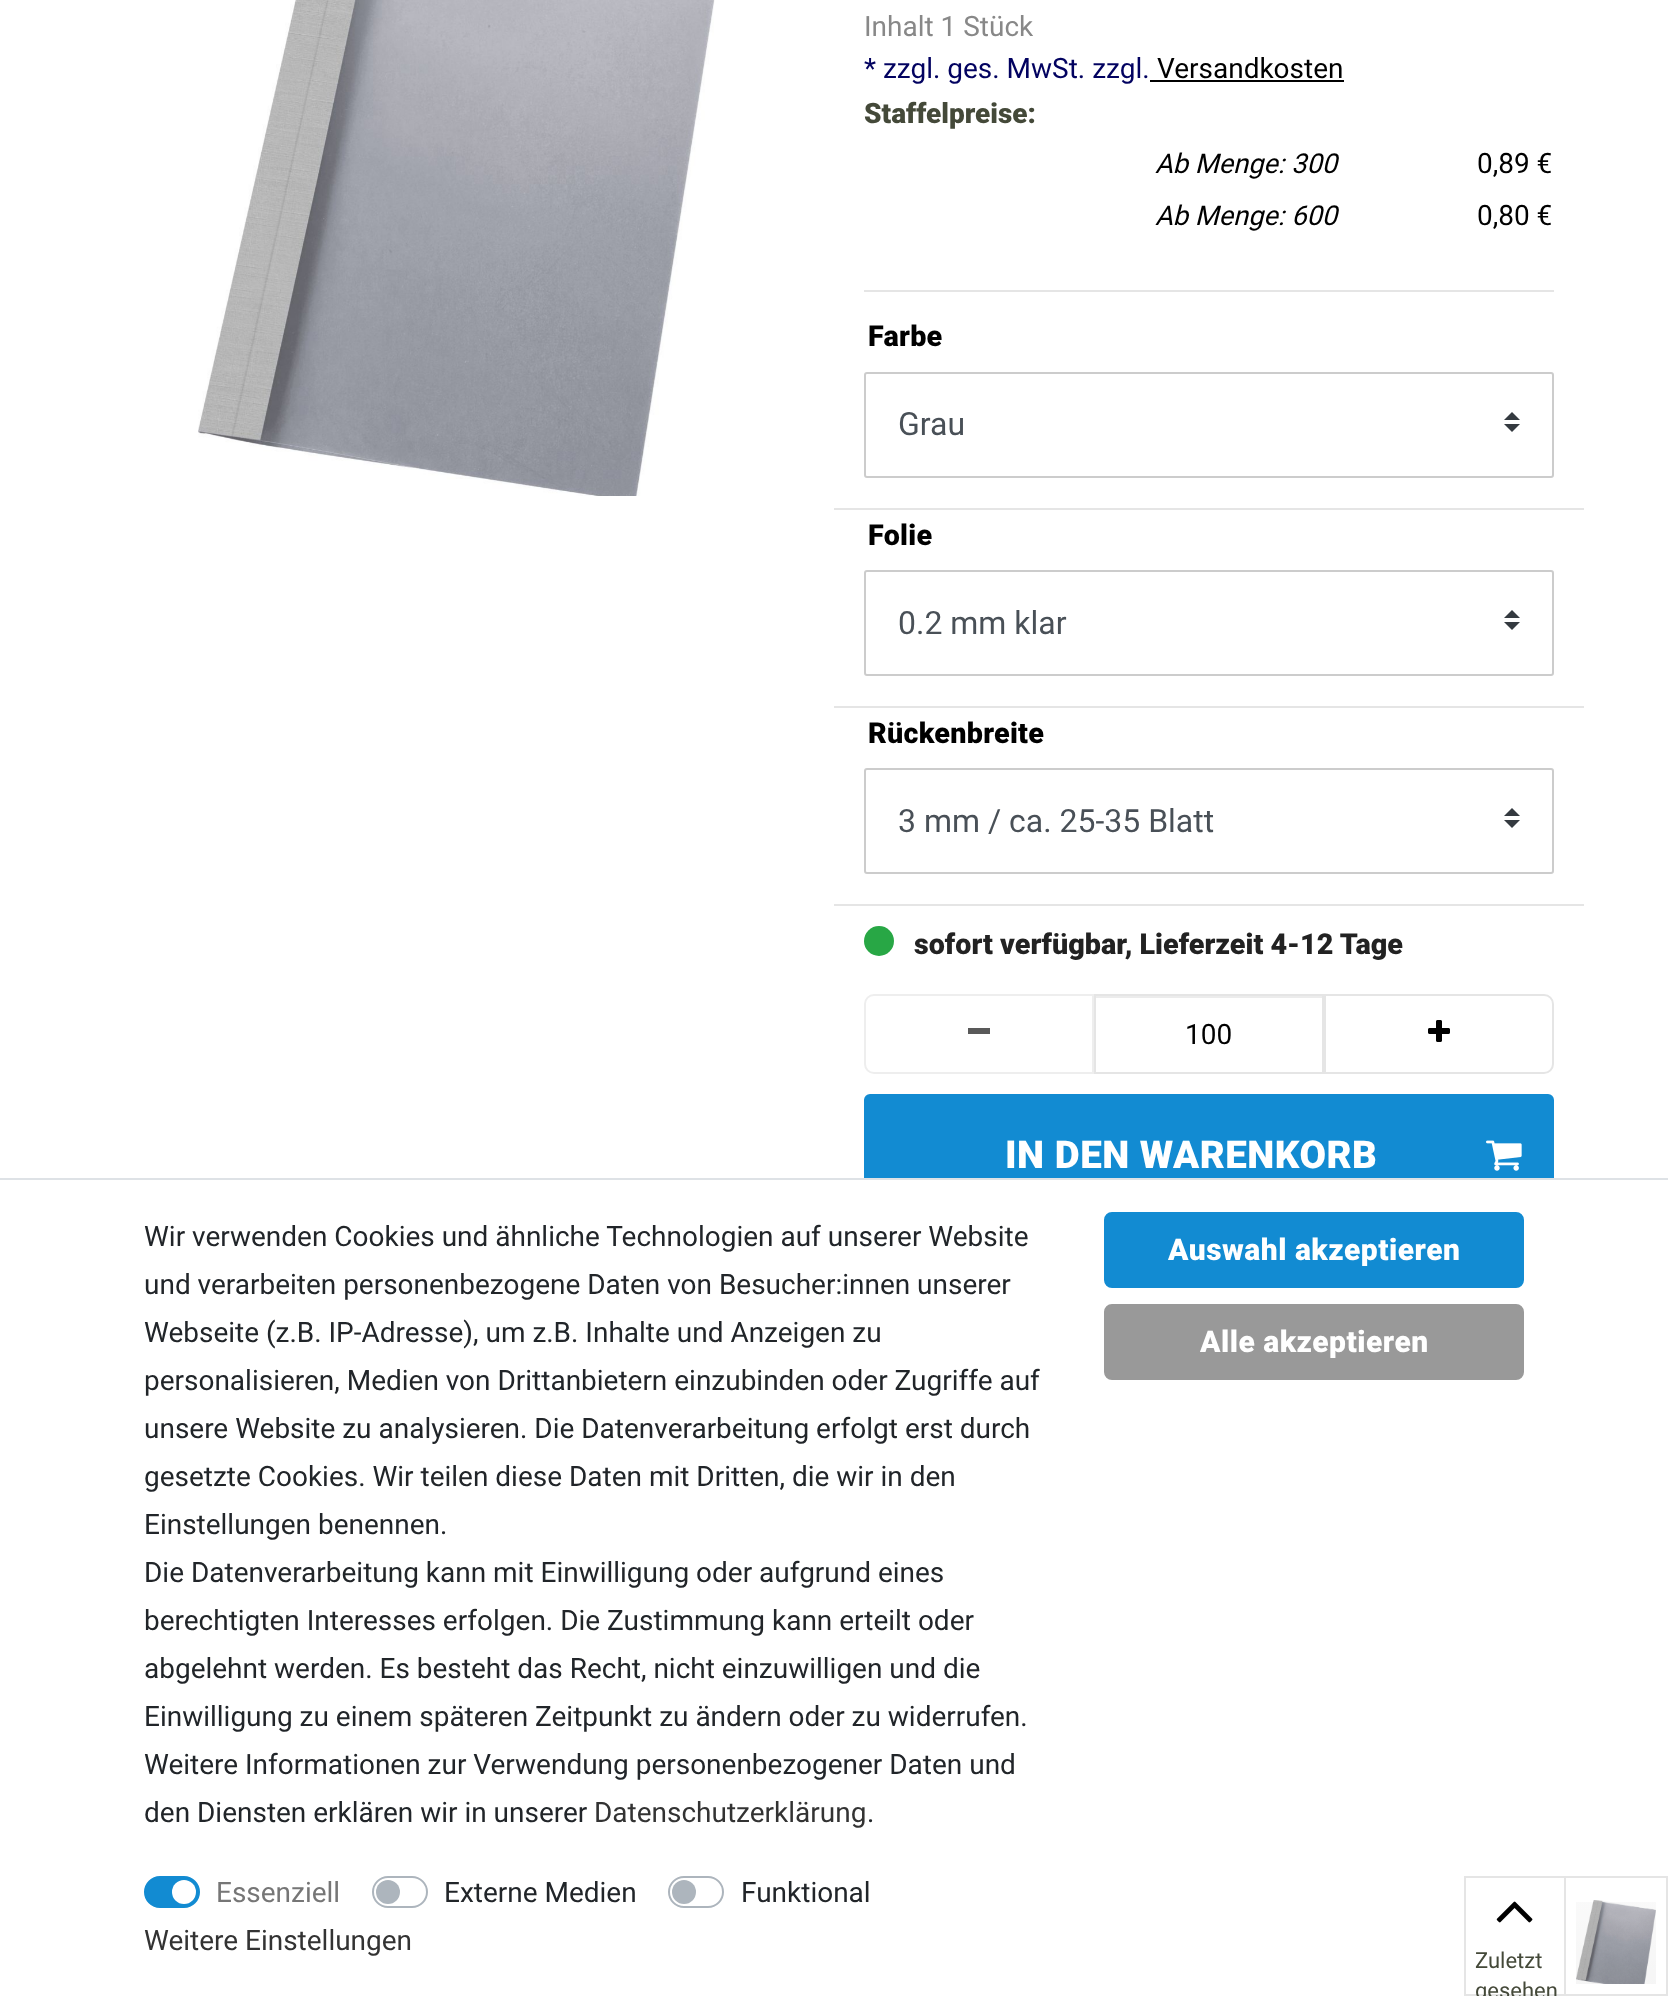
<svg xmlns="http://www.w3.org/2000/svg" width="1668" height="1996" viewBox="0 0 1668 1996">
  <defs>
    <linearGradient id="g1" gradientUnits="userSpaceOnUse" x1="1616" y1="1894" x2="1616" y2="1994"><stop offset="0" stop-color="rgb(0,0,0)" stop-opacity="0.02"/><stop offset="1" stop-color="rgb(0,0,0)" stop-opacity="0.04"/></linearGradient>
  </defs>
  <rect width="100%" height="100%" fill="rgb(255,255,255)"/>
  <image x="198" y="0" width="517" height="496" href="pic1.png"/>
  <text x="864" y="36" font-family="Roboto" font-size="28" fill="rgb(136,136,136)">Inhalt 1 Stück</text>
  <text x="864" y="78" font-family="Roboto" font-size="28" fill="rgb(2,2,96)">* zzgl. ges. MwSt. zzgl.</text>
  <rect x="1150" y="80" width="194" height="2" fill="rgb(0,0,0)"/>
  <text x="1157" y="78" font-family="Roboto" font-size="28" fill="rgb(0,0,0)">Versandkosten</text>
  <text x="864" y="123" font-family="Roboto" font-size="28" font-weight="900" fill="rgb(68,73,57)">Staffelpreise:</text>
  <text x="1155" y="173" font-family="Roboto" font-size="27.25" font-style="italic" fill="rgb(0,0,0)">Ab Menge: 300</text>
  <text x="1477" y="173" font-family="Roboto" font-size="28" fill="rgb(0,0,0)">0,89 €</text>
  <text x="1155" y="225" font-family="Roboto" font-size="27.25" font-style="italic" fill="rgb(0,0,0)">Ab Menge: 600</text>
  <text x="1477" y="225" font-family="Roboto" font-size="28" fill="rgb(0,0,0)">0,80 €</text>
  <rect x="864" y="290" width="690" height="2" fill="rgb(229,229,229)"/>
  <rect x="834" y="508" width="750" height="2" fill="rgb(229,229,229)"/>
  <rect x="865" y="373" width="688" height="104" rx="2" fill="none" stroke="rgb(204,204,204)" stroke-width="2"/>
  <text x="868" y="346" font-family="Roboto" font-size="28.75" font-weight="900" letter-spacing="0.25" fill="rgb(0,0,0)">Farbe</text>
  <path d="M1512 412L1504 420H1520ZM1512 432L1504 424H1520Z" fill="rgb(52,58,64)"/>
  <text x="898" y="435" font-family="Roboto" font-size="32" fill="rgb(73,80,87)">Grau</text>
  <rect x="834" y="706" width="750" height="2" fill="rgb(229,229,229)"/>
  <rect x="865" y="571" width="688" height="104" rx="2" fill="none" stroke="rgb(204,204,204)" stroke-width="2"/>
  <text x="868" y="545" font-family="Roboto" font-size="28.75" font-weight="900" letter-spacing="0.25" fill="rgb(0,0,0)">Folie</text>
  <path d="M1512 610L1504 618H1520ZM1512 630L1504 622H1520Z" fill="rgb(52,58,64)"/>
  <text x="898" y="634" font-family="Roboto" font-size="32" fill="rgb(73,80,87)">0.2 mm klar</text>
  <rect x="834" y="904" width="750" height="2" fill="rgb(229,229,229)"/>
  <rect x="865" y="769" width="688" height="104" rx="2" fill="none" stroke="rgb(204,204,204)" stroke-width="2"/>
  <text x="868" y="743" font-family="Roboto" font-size="28.75" font-weight="900" letter-spacing="0.25" fill="rgb(0,0,0)">Rückenbreite</text>
  <path d="M1512 808L1504 816H1520ZM1512 828L1504 820H1520Z" fill="rgb(52,58,64)"/>
  <text x="898" y="832" font-family="Roboto" font-size="32" fill="rgb(73,80,87)">3 mm / ca. 25-35 Blatt</text>
  <circle cx="879" cy="941" r="15" fill="rgb(40,167,69)"/>
  <text x="914" y="954" font-family="Roboto" font-size="28.75" font-weight="900" fill="rgb(34,34,34)">sofort verfügbar, Lieferzeit 4-12 Tage</text>
  <path d="M874 995H1093V1073H874C869 1073 865 1069 865 1064V1004C865 999 869 995 874 995Z" fill="none" stroke="rgb(238,238,238)" stroke-width="2"/>
  <rect x="968" y="1028" width="22" height="6" fill="rgb(89,89,89)"/>
  <path d="M1325 995H1544C1549 995 1553 999 1553 1004V1064C1553 1069 1549 1073 1544 1073H1325Z" fill="none" stroke="rgb(229,229,229)" stroke-width="2"/>
  <image x="1428" y="1020" width="22" height="22" href="pic2.png"/>
  <rect x="1096" y="996" width="226" height="2" fill="rgb(236,236,236)"/>
  <rect x="1095" y="995" width="228" height="78" fill="none" stroke="rgb(229,229,229)" stroke-width="2"/>
  <text x="1185" y="1044" font-family="Roboto" font-size="28" fill="rgb(0,0,0)">100</text>
  <rect x="865" y="1095" width="688" height="118" rx="5" fill="rgb(18,139,210)" stroke="rgb(18,139,210)" stroke-width="2"/>
  <text x="1005" y="1168" font-family="Roboto" font-size="38.5" font-weight="900" letter-spacing="0.5" fill="rgb(255,255,255)">IN DEN WARENKORB</text>
  <image x="1486" y="1140" width="36" height="31" href="pic3.png"/>
  <rect x="864" y="1180" width="690" height="34" fill="rgb(255,255,255)"/>
  <rect x="0" y="1178" width="1668" height="2" fill="rgb(222,226,230)"/>
  <g font-family="Roboto" font-size="28" fill="rgb(33,37,41)">
    <text>
      <tspan x="144" y="1246">Wir verwenden Cookies und ähnliche Technologien auf unserer Website</tspan>
      <tspan x="144" y="1294">und verarbeiten personenbezogene Daten von Besucher:innen unserer</tspan>
      <tspan x="144" y="1342">Webseite (z.B. IP-Adresse), um z.B. Inhalte und Anzeigen zu</tspan>
      <tspan x="144" y="1390">personalisieren, Medien von Drittanbietern einzubinden oder Zugriffe auf</tspan>
      <tspan x="144" y="1438">unsere Website zu analysieren. Die Datenverarbeitung erfolgt erst durch</tspan>
      <tspan x="144" y="1486">gesetzte Cookies. Wir teilen diese Daten mit Dritten, die wir in den</tspan>
      <tspan x="144" y="1534">Einstellungen benennen.</tspan>
      <tspan x="144" y="1582">Die Datenverarbeitung kann mit Einwilligung oder aufgrund eines</tspan>
      <tspan x="144" y="1630">berechtigten Interesses erfolgen. Die Zustimmung kann erteilt oder</tspan>
      <tspan x="144" y="1678">abgelehnt werden. Es besteht das Recht, nicht einzuwilligen und die</tspan>
      <tspan x="144" y="1726">Einwilligung zu einem späteren Zeitpunkt zu ändern oder zu widerrufen.</tspan>
      <tspan x="144" y="1774">Weitere Informationen zur Verwendung personenbezogener Daten und</tspan>
      <tspan x="144" y="1822">den Diensten erklären wir in unserer</tspan>
    </text>
  </g>
  <text x="594" y="1822" font-family="Roboto" font-size="28" fill="rgb(51,51,51)">Datenschutzerklärung</text>
  <text x="867" y="1822" font-family="Roboto" font-size="28" fill="rgb(33,37,41)">.</text>
  <rect x="145" y="1877" width="54" height="30" rx="15" fill="rgb(18,139,210)" stroke="rgb(18,139,210)" stroke-width="2"/>
  <circle cx="184" cy="1892" r="12" fill="rgb(255,255,255)"/>
  <text x="216" y="1902" font-family="Roboto" font-size="28" fill="rgb(118,118,118)">Essenziell</text>
  <rect x="373" y="1877" width="54" height="30" rx="15" fill="none" stroke="rgb(173,181,189)" stroke-width="2"/>
  <circle cx="388" cy="1892" r="12" fill="rgb(173,181,189)"/>
  <text x="444" y="1902" font-family="Roboto" font-size="28" fill="rgb(33,37,41)">Externe Medien</text>
  <rect x="669" y="1877" width="54" height="30" rx="15" fill="none" stroke="rgb(173,181,189)" stroke-width="2"/>
  <circle cx="684" cy="1892" r="12" fill="rgb(173,181,189)"/>
  <text x="741" y="1902" font-family="Roboto" font-size="28" fill="rgb(33,37,41)">Funktional</text>
  <text x="144" y="1950" font-family="Roboto" font-size="28" fill="rgb(51,51,51)">Weitere Einstellungen</text>
  <rect x="1105" y="1213" width="418" height="74" rx="7" fill="rgb(18,139,210)" stroke="rgb(18,139,210)" stroke-width="2"/>
  <text x="1168" y="1260" font-family="Roboto" font-size="30" font-weight="900" letter-spacing="0.5" fill="rgb(255,255,255)">Auswahl akzeptieren</text>
  <rect x="1105" y="1305" width="418" height="74" rx="7" fill="rgb(153,153,153)" stroke="rgb(153,153,153)" stroke-width="2"/>
  <text x="1200" y="1352" font-family="Roboto" font-size="30" font-weight="900" letter-spacing="0.5" fill="rgb(255,255,255)">Alle akzeptieren</text>
  <rect x="1465" y="1877" width="202" height="118" fill="none" stroke="rgb(229,229,229)" stroke-width="2"/>
  <rect x="1564" y="1878" width="2" height="116" fill="rgb(229,229,229)"/>
  <image x="1496" y="1901" width="37" height="22" href="pic4.png"/>
  <g font-family="Roboto" font-size="22" fill="rgb(68,73,57)">
    <text>
      <tspan x="1475" y="1968">Zuletzt</tspan>
      <tspan x="1475" y="1998">gesehen</tspan>
    </text>
  </g>
  <image x="1576" y="1900" width="80" height="84" href="pic5.png"/>
  <rect x="1576" y="1902" width="80" height="82" fill="url(#g1)"/>
</svg>
